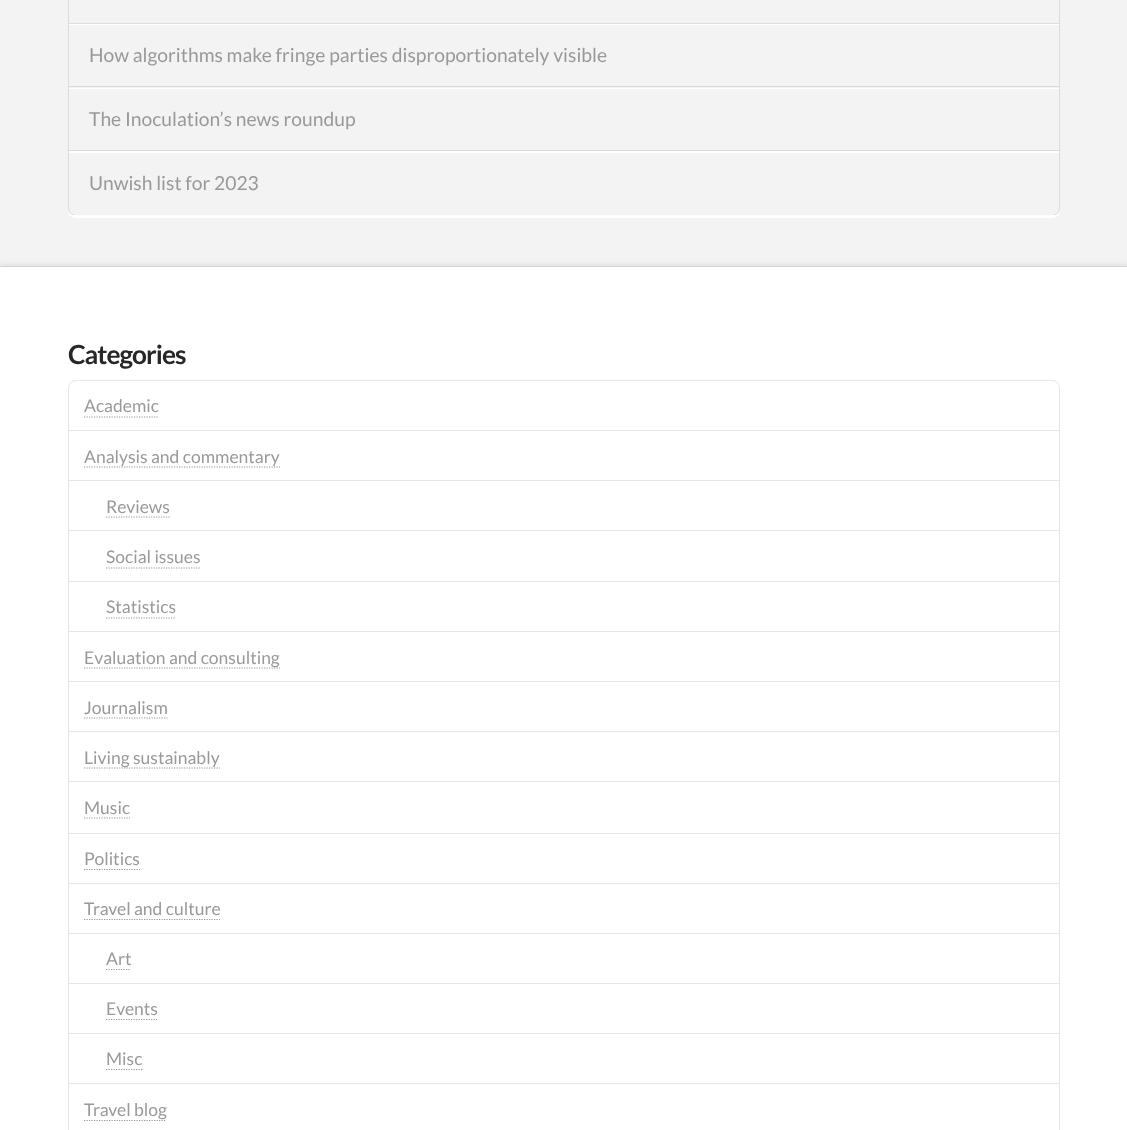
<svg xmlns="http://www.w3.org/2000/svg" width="1127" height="1130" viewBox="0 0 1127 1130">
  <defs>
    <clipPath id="clip1"><path d="M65 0H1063V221H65ZM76-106H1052C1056.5-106 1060-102.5 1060-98V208C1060 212.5 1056.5 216 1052 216H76C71.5 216 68 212.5 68 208V-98C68-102.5 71.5-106 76-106Z" clip-rule="evenodd"/></clipPath>
    <clipPath id="clip2"><path d="M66 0H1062V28H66ZM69-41H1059V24H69Z" clip-rule="evenodd"/></clipPath>
    <clipPath id="clip3"><path d="M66 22H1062V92H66ZM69 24H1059V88H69Z" clip-rule="evenodd"/></clipPath>
    <clipPath id="clip4"><path d="M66 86H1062V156H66ZM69 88H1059V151H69Z" clip-rule="evenodd"/></clipPath>
    <clipPath id="clip5"><path d="M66 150H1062V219H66ZM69 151H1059V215H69Z" clip-rule="evenodd"/></clipPath>
  </defs>
  <rect width="100%" height="100%" fill="rgb(243,243,243)"/>
  <g clip-path="url(#clip1)">
    <rect x="68" y="-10" width="992" height="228" rx="8" fill="rgba(255,255,255,0.95)" filter="blur(0.5px)"/>
  </g>
  <rect x="68.5" y="-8.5" width="991" height="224" rx="7.5" fill="none" stroke="rgb(219,219,219)"/>
  <g clip-path="url(#clip2)">
    <rect x="69" y="-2" width="990" height="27" fill="rgba(255,255,255,0.95)" filter="blur(0.5px)"/>
  </g>
  <rect x="69" y="23" width="990" height="1" fill="rgb(221,221,221)"/>
  <g clip-path="url(#clip3)">
    <rect x="69" y="25" width="990" height="64" fill="rgba(255,255,255,0.95)" filter="blur(0.5px)"/>
  </g>
  <rect x="69" y="86" width="990" height="1" fill="rgba(0,0,0,0.1)"/>
  <text x="89" y="62" font-family="Lato" font-size="19.3" fill="rgb(153,153,153)">How algorithms make fringe parties disproportionately visible</text>
  <g clip-path="url(#clip4)">
    <rect x="69" y="89" width="990" height="64" fill="rgba(255,255,255,0.95)" filter="blur(0.5px)"/>
  </g>
  <rect x="69" y="150" width="990" height="1" fill="rgba(0,0,0,0.1)"/>
  <text x="89" y="126" font-family="Lato" font-size="19.3" fill="rgb(153,153,153)">The Inoculation’s news roundup</text>
  <g clip-path="url(#clip5)">
    <rect x="69" y="153" width="990" height="63" fill="rgba(255,255,255,0.95)" filter="blur(0.5px)"/>
  </g>
  <text x="89" y="190" font-family="Lato" font-size="19.3" fill="rgb(153,153,153)">Unwish list for 2023</text>
  <rect x="0" y="264" width="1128" height="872" fill="rgba(0,0,0,0.07)" filter="blur(2px)"/>
  <rect x="0" y="267" width="1127" height="863" fill="rgb(255,255,255)"/>
  <rect x="0" y="266" width="1127" height="1" fill="rgb(212,212,212)"/>
  <text x="68" y="364" font-family="Lato" font-size="26.25" font-weight="bold" letter-spacing="-1" fill="rgb(39,39,39)">Categories</text>
  <rect x="68.5" y="380.5" width="991" height="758" rx="7.5" fill="none" stroke="rgb(230,230,230)"/>
  <rect x="69" y="430" width="990" height="1" fill="rgb(230,230,230)"/>
  <text x="84" y="412" font-family="Lato" font-size="17.5" fill="rgb(153,153,153)">Academic</text>
  <path d="M84 417H159" fill="none" stroke="rgb(153,153,153)" stroke-width="1.2" stroke-dasharray="1.25 1.25"/>
  <rect x="69" y="631" width="990" height="1" fill="rgb(230,230,230)"/>
  <text x="84" y="463" font-family="Lato" font-size="17.5" fill="rgb(153,153,153)">Analysis and commentary</text>
  <path d="M84 467H280" fill="none" stroke="rgb(153,153,153)" stroke-width="1.2" stroke-dasharray="1.25 1.25"/>
  <rect x="69" y="480" width="990" height="1" fill="rgb(230,230,230)"/>
  <rect x="69" y="530" width="990" height="1" fill="rgb(230,230,230)"/>
  <text x="106" y="513" font-family="Lato" font-size="17.5" fill="rgb(153,153,153)">Reviews</text>
  <path d="M106 517H170" fill="none" stroke="rgb(153,153,153)" stroke-width="1.2" stroke-dasharray="1.25 1.25"/>
  <rect x="69" y="581" width="990" height="1" fill="rgb(230,230,230)"/>
  <text x="106" y="563" font-family="Lato" font-size="17.5" fill="rgb(153,153,153)">Social issues</text>
  <path d="M106 568H200" fill="none" stroke="rgb(153,153,153)" stroke-width="1.2" stroke-dasharray="1.25 1.25"/>
  <text x="106" y="613" font-family="Lato" font-size="17.5" fill="rgb(153,153,153)">Statistics</text>
  <path d="M106 618H176" fill="none" stroke="rgb(153,153,153)" stroke-width="1.2" stroke-dasharray="1.25 1.25"/>
  <rect x="69" y="681" width="990" height="1" fill="rgb(230,230,230)"/>
  <path d="M84 668H280" fill="none" stroke="rgb(153,153,153)" stroke-width="1.2" stroke-dasharray="1.25 1.25"/>
  <text x="84" y="664" font-family="Lato" font-size="17.5" fill="rgb(153,153,153)">Evaluation and consulting</text>
  <rect x="69" y="731" width="990" height="1" fill="rgb(230,230,230)"/>
  <text x="84" y="714" font-family="Lato" font-size="17.5" fill="rgb(153,153,153)">Journalism</text>
  <path d="M84 718H167.5" fill="none" stroke="rgb(153,153,153)" stroke-width="1.2" stroke-dasharray="1.25 1.25"/>
  <rect x="69" y="781" width="990" height="1" fill="rgb(230,230,230)"/>
  <path d="M84 768H220" fill="none" stroke="rgb(153,153,153)" stroke-width="1.2" stroke-dasharray="1.25 1.25"/>
  <text x="84" y="764" font-family="Lato" font-size="17.5" fill="rgb(153,153,153)">Living sustainably</text>
  <rect x="69" y="833" width="990" height="1" fill="rgb(230,230,230)"/>
  <text x="84" y="814" font-family="Lato" font-size="17.5" fill="rgb(153,153,153)">Music</text>
  <path d="M84 818H130" fill="none" stroke="rgb(153,153,153)" stroke-width="1.2" stroke-dasharray="1.25 1.25"/>
  <rect x="69" y="883" width="990" height="1" fill="rgb(230,230,230)"/>
  <text x="84" y="865" font-family="Lato" font-size="17.5" fill="rgb(153,153,153)">Politics</text>
  <path d="M84 869.5H140" fill="none" stroke="rgb(153,153,153)" stroke-width="1.2" stroke-dasharray="1.25 1.25"/>
  <rect x="69" y="1083" width="990" height="1" fill="rgb(230,230,230)"/>
  <text x="84" y="915" font-family="Lato" font-size="17.5" fill="rgb(153,153,153)">Travel and culture</text>
  <path d="M84 919.5H220" fill="none" stroke="rgb(153,153,153)" stroke-width="1.2" stroke-dasharray="1.25 1.25"/>
  <rect x="69" y="933" width="990" height="1" fill="rgb(230,230,230)"/>
  <rect x="69" y="983" width="990" height="1" fill="rgb(230,230,230)"/>
  <text x="106" y="965" font-family="Lato" font-size="17.5" fill="rgb(153,153,153)">Art</text>
  <path d="M106 969.5H131" fill="none" stroke="rgb(153,153,153)" stroke-width="1.2" stroke-dasharray="1.25 1.25"/>
  <rect x="69" y="1033" width="990" height="1" fill="rgb(230,230,230)"/>
  <text x="106" y="1015" font-family="Lato" font-size="17.5" fill="rgb(153,153,153)">Events</text>
  <path d="M106 1019.5H157.5" fill="none" stroke="rgb(153,153,153)" stroke-width="1.2" stroke-dasharray="1.25 1.25"/>
  <text x="106" y="1065" font-family="Lato" font-size="17.5" fill="rgb(153,153,153)">Misc</text>
  <path d="M106 1069.5H142.5" fill="none" stroke="rgb(153,153,153)" stroke-width="1.2" stroke-dasharray="1.25 1.25"/>
  <path d="M84 1120.5H166" fill="none" stroke="rgb(153,153,153)" stroke-width="1.2" stroke-dasharray="1.25 1.25"/>
  <text x="84" y="1116" font-family="Lato" font-size="17.5" fill="rgb(153,153,153)">Travel blog</text>
</svg>
